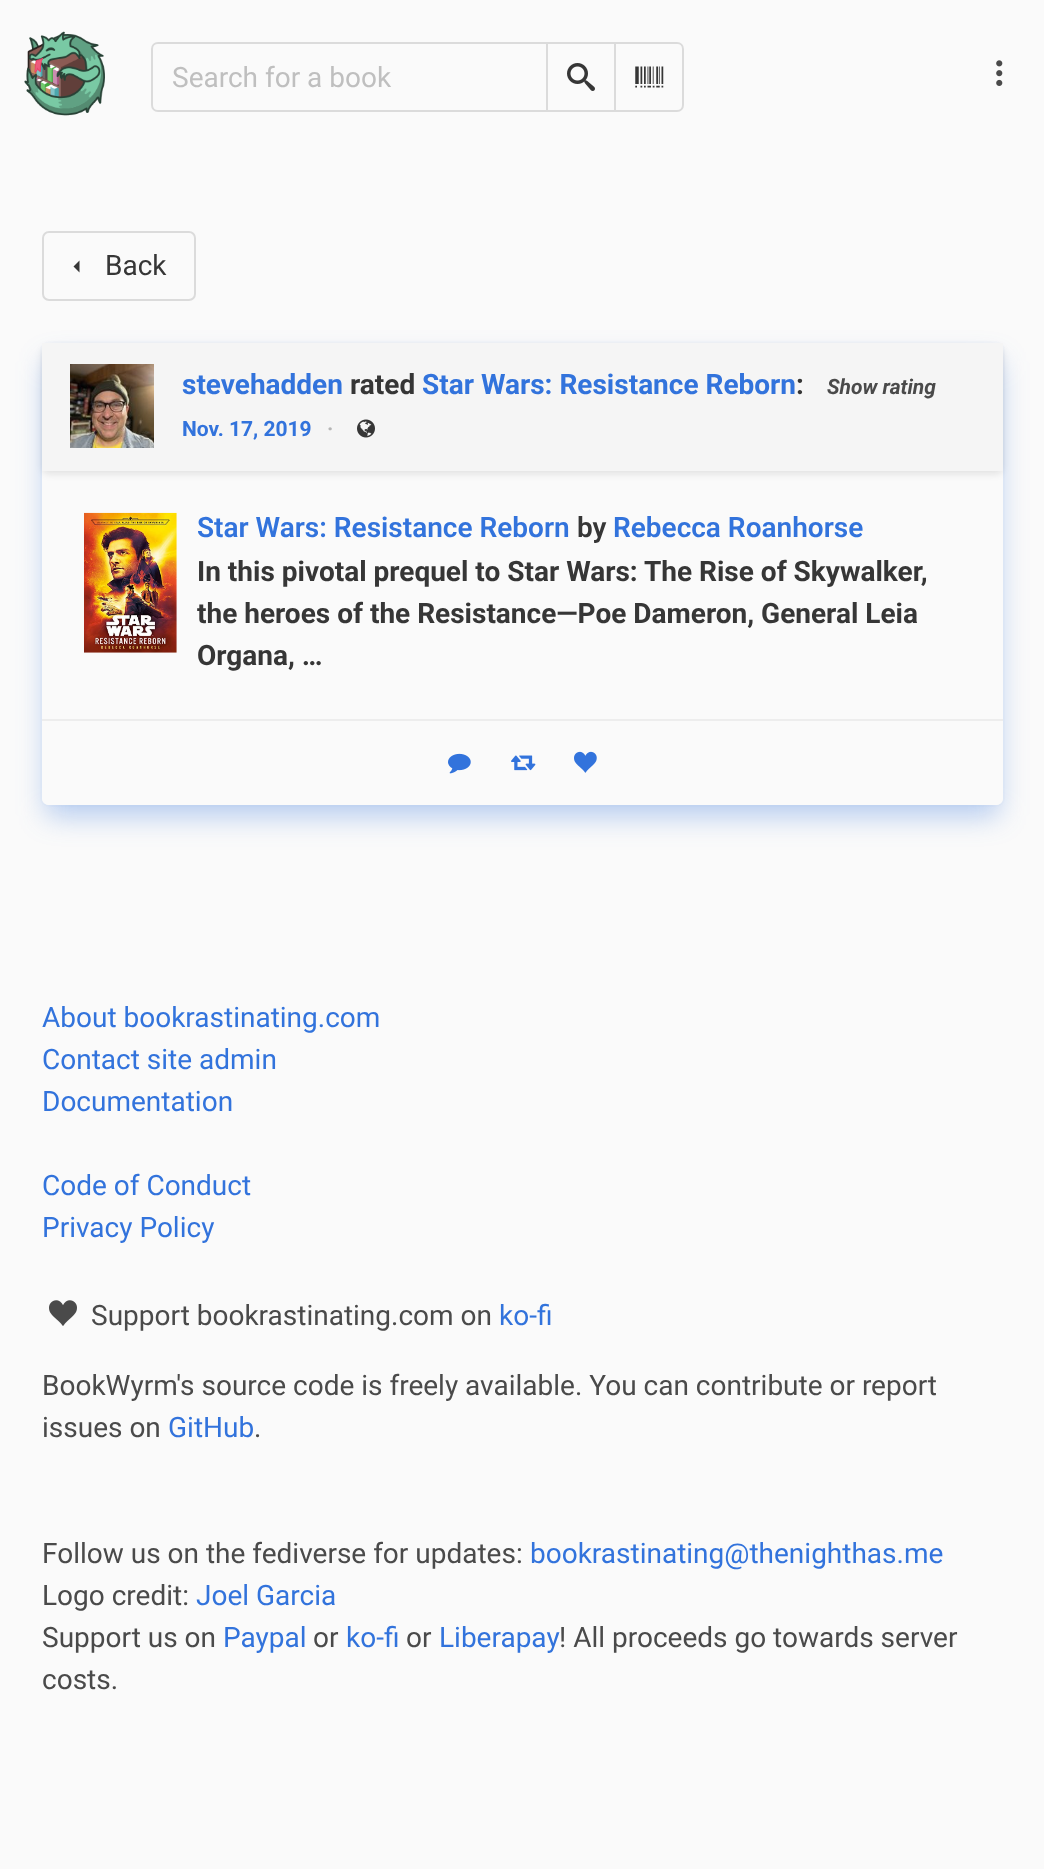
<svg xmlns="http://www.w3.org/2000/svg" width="1044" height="1869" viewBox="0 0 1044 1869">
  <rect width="100%" height="100%" fill="rgb(250,250,250)"/>
  <image x="24" y="31" width="81" height="85" href="pic1.png"/>
  <path d="M158 43H547V111H158C154.5 111 152 108.5 152 105V49C152 45.5 154.5 43 158 43Z" fill="none" stroke="rgb(219,219,219)" stroke-width="2"/>
  <text x="172" y="87" font-family="Roboto" font-size="28" fill="rgb(191,191,191)">Search for a book</text>
  <rect x="547" y="43" width="68" height="68" fill="none" stroke="rgb(219,219,219)" stroke-width="2"/>
  <image x="567" y="63" width="28" height="28" href="pic2.png"/>
  <path d="M615 43H677C680.5 43 683 45.5 683 49V105C683 108.5 680.5 111 677 111H615Z" fill="rgb(250,250,250)" stroke="rgb(219,219,219)" stroke-width="2"/>
  <image x="635" y="66" width="29" height="22" href="pic3.png"/>
  <image x="996" y="60" width="7" height="26" href="pic4.png"/>
  <rect x="43" y="232" width="152" height="68" rx="6" fill="none" stroke="rgb(219,219,219)" stroke-width="2"/>
  <path d="M79.5 260.5V272.5L73.5 266.5Z" fill="rgb(54,54,54)"/>
  <text x="105" y="275" font-family="Roboto" font-size="28" fill="rgb(54,54,54)">Back</text>
  <rect x="41" y="342" width="963" height="464" rx="8" fill="none" stroke="rgb(246,247,249)" stroke-width="2"/>
  <rect x="46" y="361" width="953" height="455" rx="4" fill="rgba(50,115,220,0.35)" filter="blur(14px)"/>
  <rect x="42" y="343" width="961" height="462" rx="7" fill="rgb(250,250,250)"/>
  <rect x="42" y="347" width="961" height="127" rx="7" fill="rgba(10,10,10,0.1)" filter="blur(3.5px)"/>
  <rect x="42" y="343" width="961" height="128" fill="rgb(245,245,245)"/>
  <image x="70" y="364" width="84" height="84" href="pic5.png"/>
  <text x="182" y="394" font-family="Roboto" font-size="28" font-weight="bold" fill="rgb(50,115,220)">stevehadden</text>
  <text x="350" y="394" font-family="Roboto" font-size="28" font-weight="bold" fill="rgb(54,54,54)">rated</text>
  <text x="422" y="394" font-family="Roboto" font-size="28" font-weight="bold" fill="rgb(50,115,220)">Star Wars: Resistance Reborn</text>
  <text x="796" y="394" font-family="Roboto" font-size="28" font-weight="bold" fill="rgb(54,54,54)">:</text>
  <text x="827" y="394" font-family="Roboto" font-size="21" font-weight="bold" font-style="italic" fill="rgb(74,74,74)">Show rating</text>
  <text x="182" y="436" font-family="Roboto" font-size="21" font-weight="bold" fill="rgb(50,115,220)">Nov. 17, 2019</text>
  <text x="327" y="436" font-family="Roboto" font-size="21" font-weight="bold" fill="rgb(181,181,181)">·</text>
  <image x="357" y="419" width="18" height="19" href="pic6.png"/>
  <image x="84" y="512" width="93" height="141" href="pic7.png"/>
  <text x="197" y="537" font-family="Roboto" font-size="28" font-weight="600" fill="rgb(50,115,220)">Star Wars: Resistance Reborn</text>
  <text x="577" y="537" font-family="Roboto" font-size="28" font-weight="600" fill="rgb(54,54,54)">by</text>
  <text x="613" y="537" font-family="Roboto" font-size="28" font-weight="600" fill="rgb(50,115,220)">Rebecca Roanhorse</text>
  <g font-family="Roboto" font-size="28" font-weight="bold" fill="rgb(54,54,54)">
    <text>
      <tspan x="197" y="581">In this pivotal prequel to Star Wars: The Rise of Skywalker,</tspan>
      <tspan x="197" y="623">the heroes of the Resistance—Poe Dameron, General Leia</tspan>
      <tspan x="197" y="665">Organa, …</tspan>
    </text>
  </g>
  <path d="M42 719H1003V798C1003 802 1000 805 996 805H49C45 805 42 802 42 798Z" fill="rgb(250,250,250)"/>
  <rect x="42" y="719" width="961" height="2" fill="rgb(237,237,237)"/>
  <image x="448" y="753" width="23" height="21" href="pic8.png"/>
  <image x="511" y="755" width="25" height="16" href="pic9.png"/>
  <image x="574" y="751" width="23" height="22" href="pic10.png"/>
  <g font-family="Roboto" font-size="28" fill="rgb(50,115,220)">
    <text>
      <tspan x="42" y="1027">About bookrastinating.com</tspan>
      <tspan x="42" y="1069">Contact site admin</tspan>
      <tspan x="42" y="1111">Documentation</tspan>
    </text>
    <text>
      <tspan x="42" y="1195">Code of Conduct</tspan>
      <tspan x="42" y="1237">Privacy Policy</tspan>
    </text>
  </g>
  <image x="49" y="1300" width="28" height="26" href="pic11.png"/>
  <text x="91" y="1325" font-family="Roboto" font-size="28" fill="rgb(74,74,74)">Support bookrastinating.com on</text>
  <text x="499" y="1325" font-family="Roboto" font-size="28" fill="rgb(50,115,220)">ko-fi</text>
  <g font-family="Roboto" font-size="28" fill="rgb(74,74,74)">
    <text>
      <tspan x="42" y="1395">BookWyrm's source code is freely available. You can contribute or report</tspan>
      <tspan x="42" y="1437">issues on</tspan>
    </text>
  </g>
  <text x="168" y="1437" font-family="Roboto" font-size="28" fill="rgb(50,115,220)">GitHub</text>
  <g font-family="Roboto" font-size="28" fill="rgb(74,74,74)">
    <text x="254" y="1437">.</text>
    <text x="42" y="1563">Follow us on the fediverse for updates:</text>
  </g>
  <text x="530" y="1563" font-family="Roboto" font-size="28" fill="rgb(50,115,220)">bookrastinating@thenighthas.me</text>
  <text x="42" y="1605" font-family="Roboto" font-size="28" fill="rgb(74,74,74)">Logo credit:</text>
  <text x="196" y="1605" font-family="Roboto" font-size="28" fill="rgb(50,115,220)">Joel Garcia</text>
  <text x="42" y="1647" font-family="Roboto" font-size="28" fill="rgb(74,74,74)">Support us on</text>
  <text x="223" y="1647" font-family="Roboto" font-size="28" fill="rgb(50,115,220)">Paypal</text>
  <text x="313" y="1647" font-family="Roboto" font-size="28" fill="rgb(74,74,74)">or</text>
  <text x="346" y="1647" font-family="Roboto" font-size="28" fill="rgb(50,115,220)">ko-fi</text>
  <text x="406" y="1647" font-family="Roboto" font-size="28" fill="rgb(74,74,74)">or</text>
  <text x="439" y="1647" font-family="Roboto" font-size="28" fill="rgb(50,115,220)">Liberapay</text>
  <g font-family="Roboto" font-size="28" fill="rgb(74,74,74)">
    <text x="559" y="1647">! All proceeds go towards server</text>
    <text x="42" y="1689">costs.</text>
  </g>
</svg>
